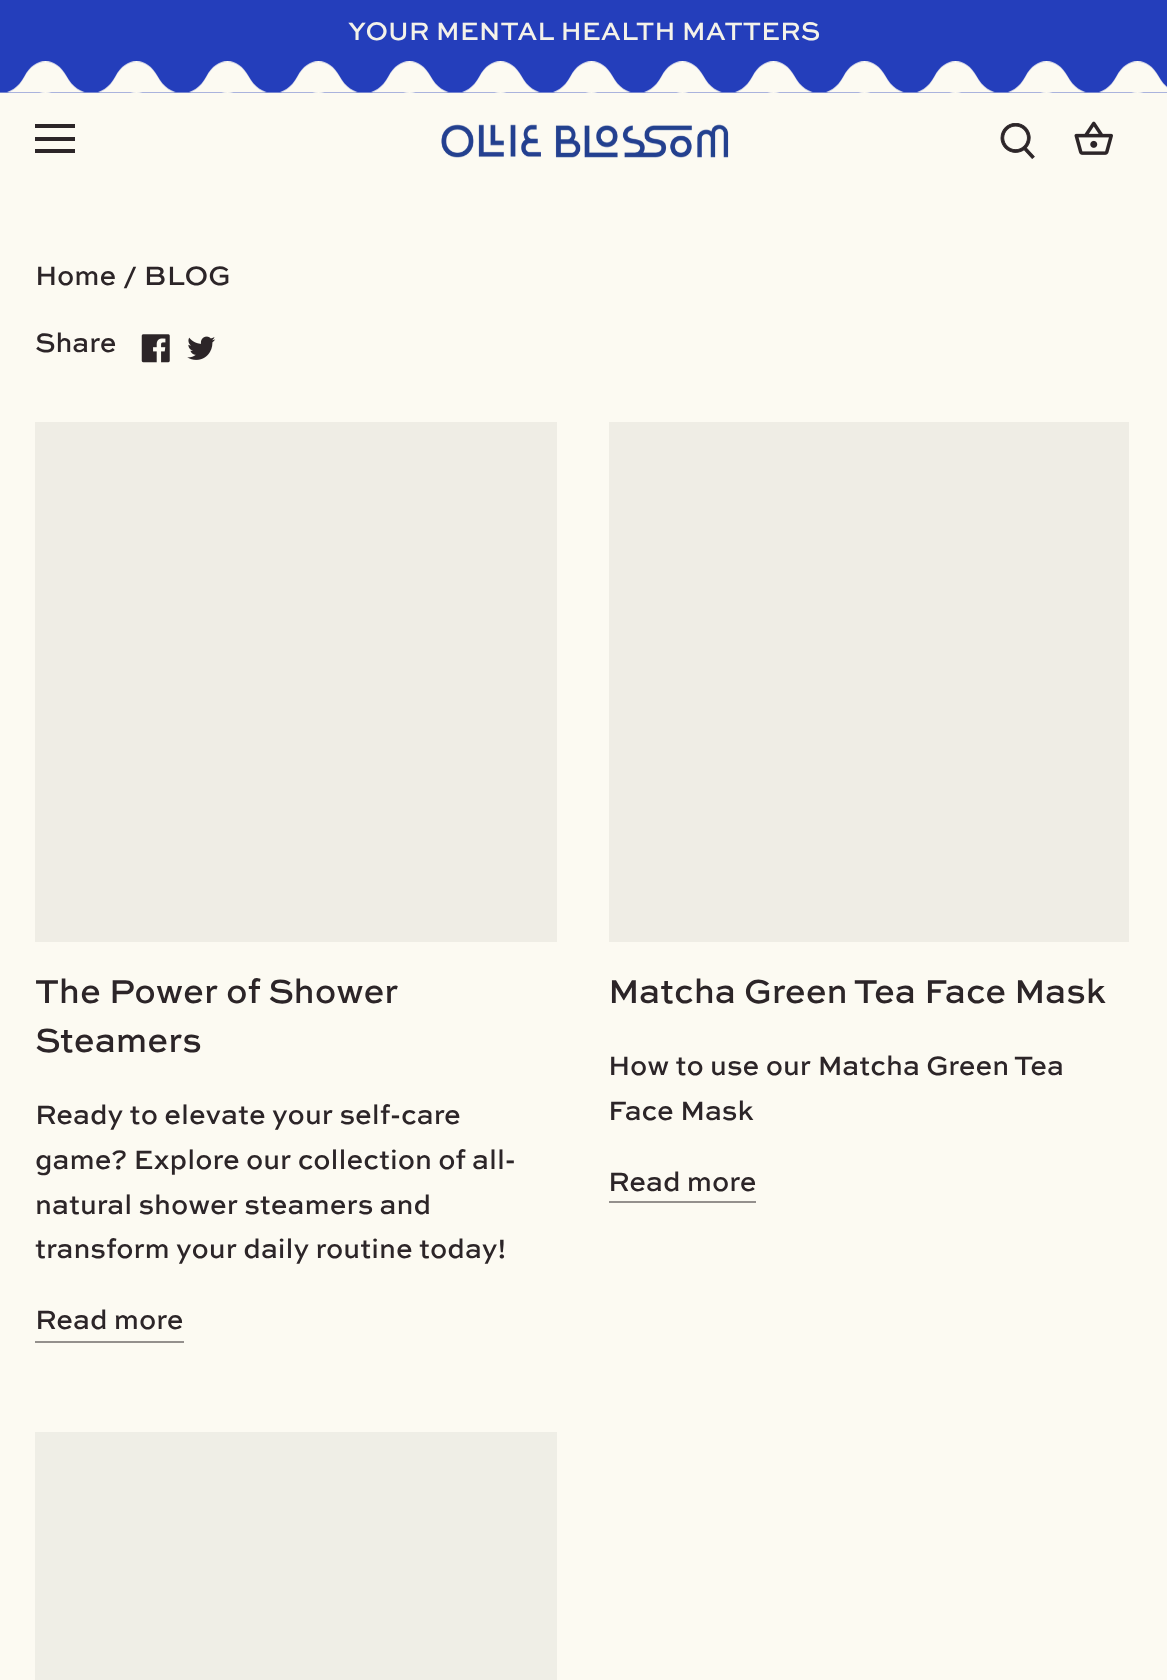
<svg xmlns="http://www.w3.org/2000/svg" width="1167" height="1680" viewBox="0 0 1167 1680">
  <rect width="100%" height="100%" fill="rgb(252,250,242)"/>
  <rect x="0" y="0" width="1167" height="61" fill="rgb(36,62,187)"/>
  <text x="348" y="40" font-family="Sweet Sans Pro" font-size="26.6" font-weight="500" fill="rgb(244,242,233)">YOUR MENTAL HEALTH MATTERS</text>
  <image x="0" y="61" width="1167" height="32" href="pic1.png"/>
  <rect x="35" y="124" width="40" height="4" fill="rgb(44,37,40)"/>
  <rect x="35" y="137" width="40" height="4" fill="rgb(44,37,40)"/>
  <rect x="35" y="149" width="40" height="4" fill="rgb(44,37,40)"/>
  <image x="441" y="124" width="288" height="34" href="pic2.png"/>
  <image x="1000" y="123" width="35" height="36" href="pic3.png"/>
  <image x="1074" y="121" width="39" height="34" href="pic4.png"/>
  <g font-family="Sweet Sans Pro" font-size="28" font-weight="500" fill="rgb(44,37,40)">
    <text x="35" y="285">Home / BLOG</text>
    <text x="35" y="352">Share</text>
  </g>
  <image x="141" y="334" width="29" height="29" href="pic5.png"/>
  <image x="187" y="336" width="29" height="24" href="pic6.png"/>
  <rect x="35" y="422" width="522" height="520" fill="rgb(239,237,229)"/>
  <g font-family="Sweet Sans Pro" font-size="35" font-weight="500" fill="rgb(44,37,40)">
    <text>
      <tspan x="35" y="1003">The Power of Shower</tspan>
      <tspan x="35" y="1052">Steamers</tspan>
    </text>
  </g>
  <g font-family="Sweet Sans Pro" font-size="28" font-weight="500" fill="rgb(44,37,40)">
    <text>
      <tspan x="35" y="1124">Ready to elevate your self-care</tspan>
      <tspan x="35" y="1169">game? Explore our collection of all-</tspan>
      <tspan x="35" y="1214">natural shower steamers and</tspan>
      <tspan x="35" y="1258">transform your daily routine today!</tspan>
    </text>
    <text x="35" y="1329">Read more</text>
  </g>
  <rect x="35" y="1341" width="149" height="2" fill="rgb(148,144,141)"/>
  <rect x="609" y="422" width="520" height="520" fill="rgb(239,237,229)"/>
  <text x="608" y="1003" font-family="Sweet Sans Pro" font-size="35" font-weight="500" fill="rgb(44,37,40)">Matcha Green Tea Face Mask</text>
  <g font-family="Sweet Sans Pro" font-size="28" font-weight="500" fill="rgb(44,37,40)">
    <text>
      <tspan x="608" y="1075">How to use our Matcha Green Tea</tspan>
      <tspan x="608" y="1120">Face Mask</tspan>
    </text>
    <text x="608" y="1191">Read more</text>
  </g>
  <rect x="609" y="1201" width="147" height="2" fill="rgb(148,144,141)"/>
  <rect x="35" y="1432" width="522" height="248" fill="rgb(239,238,230)"/>
</svg>
